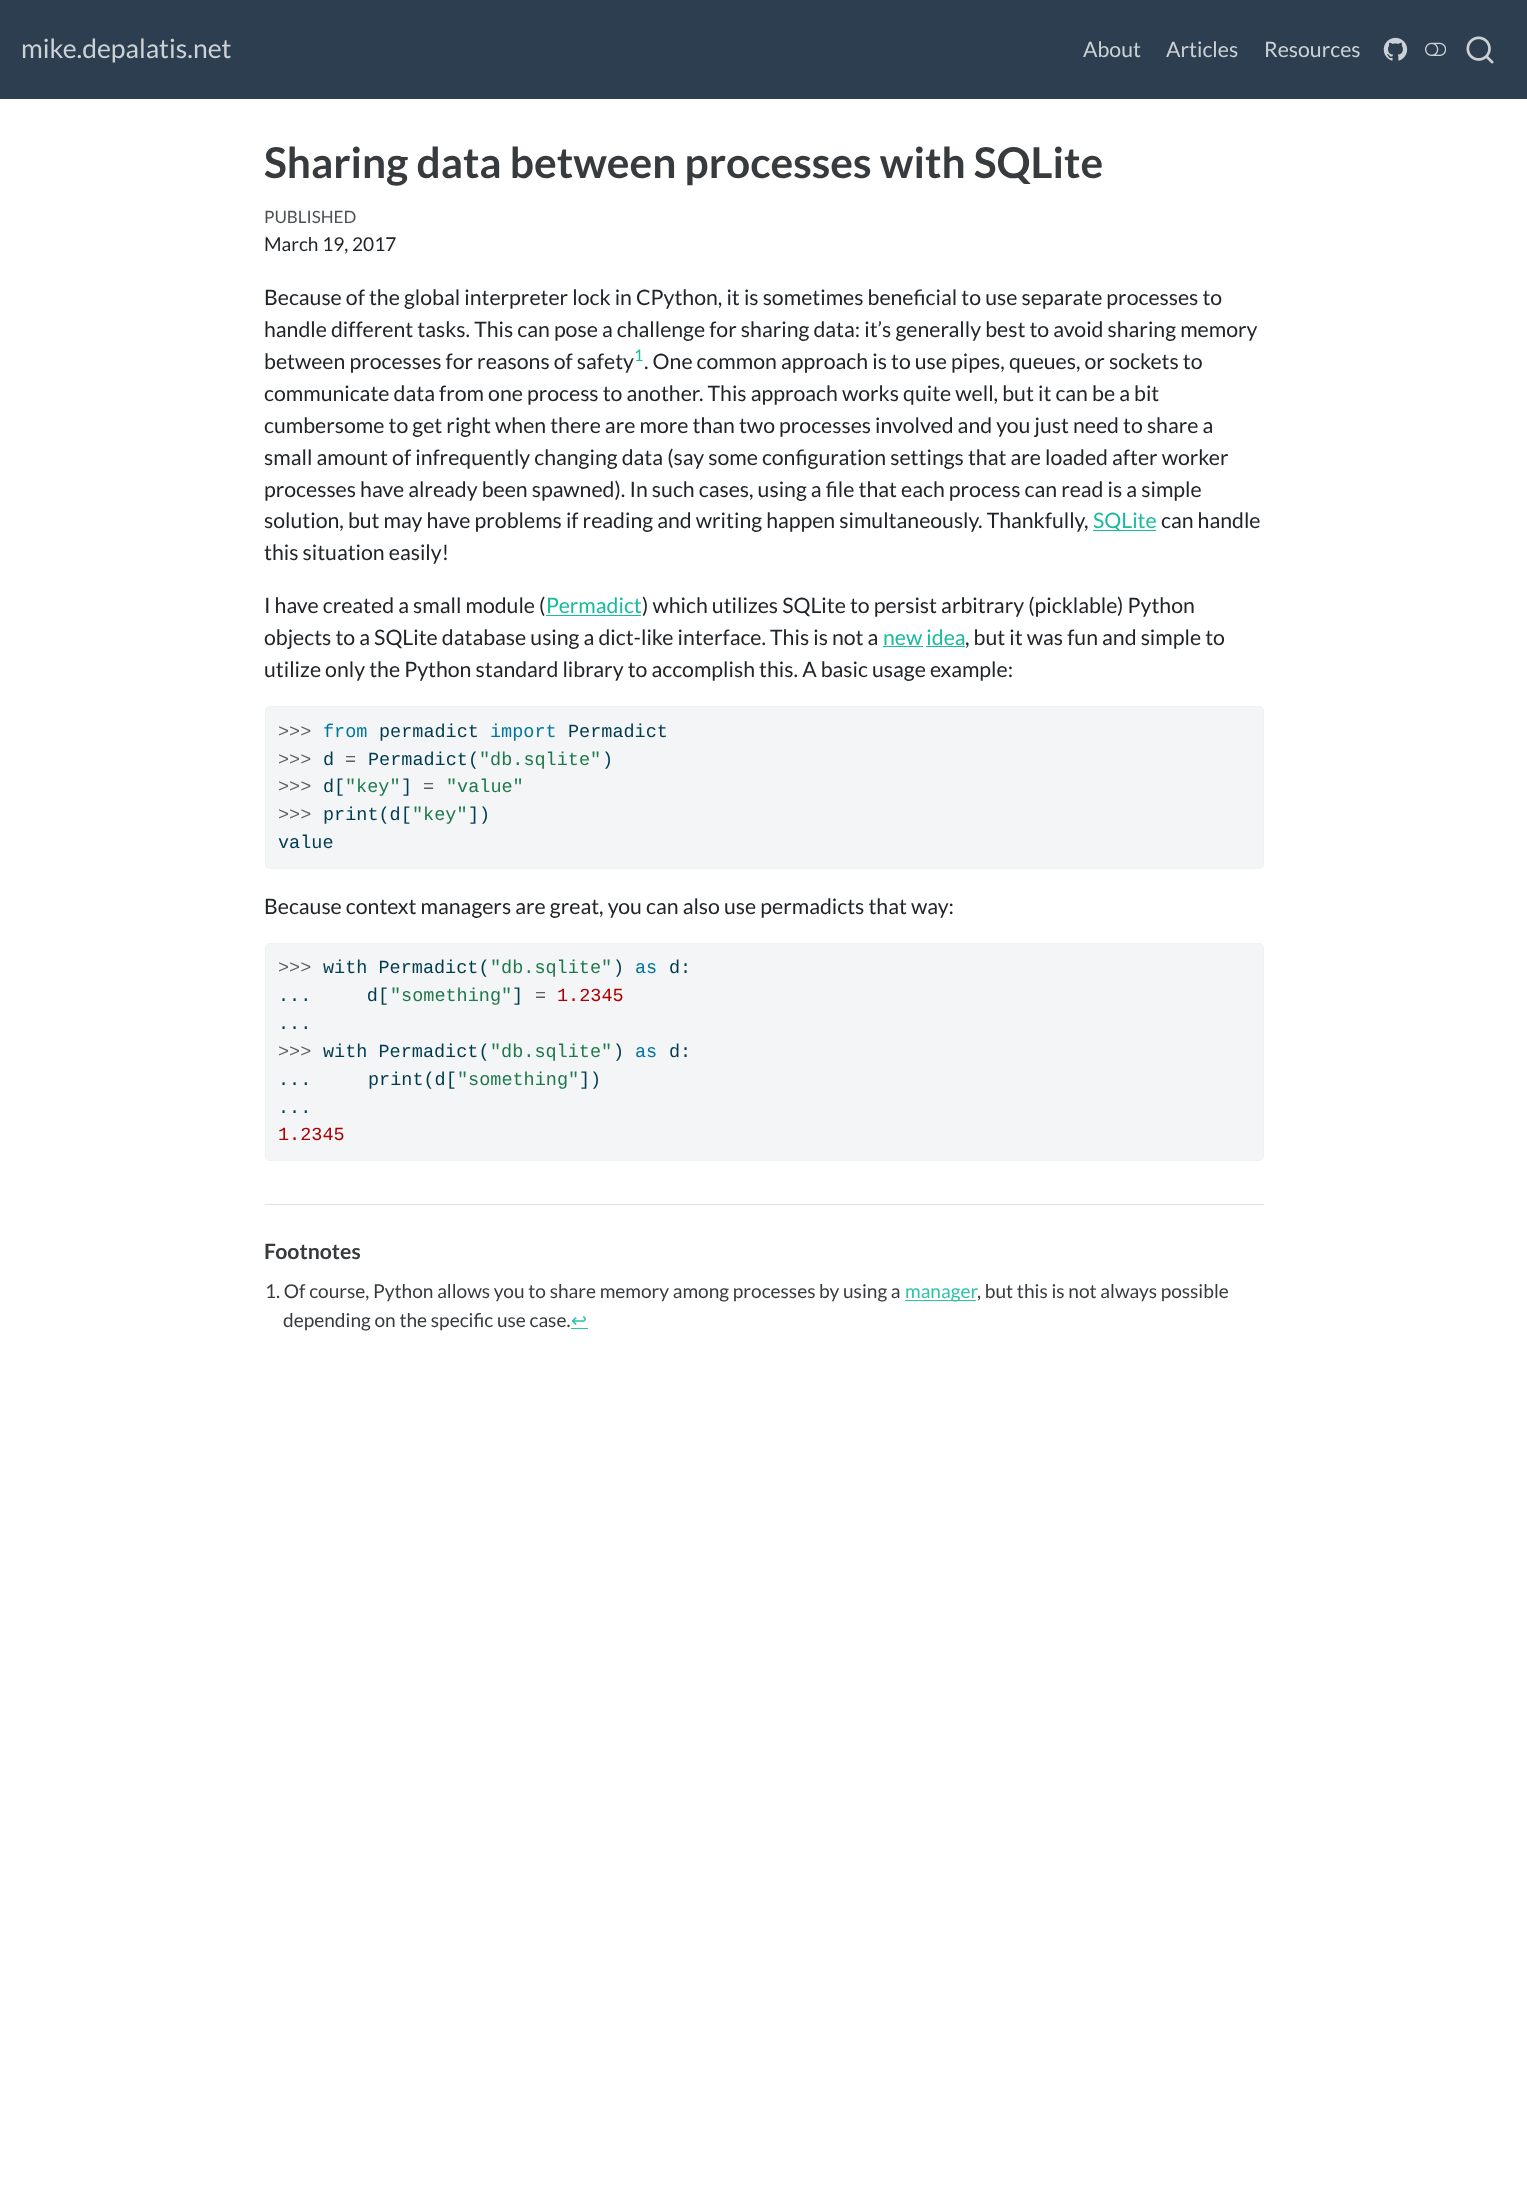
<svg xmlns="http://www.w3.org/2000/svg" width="1527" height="2211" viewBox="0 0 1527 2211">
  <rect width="100%" height="100%" fill="rgb(255,255,255)"/>
  <rect x="0" y="0" width="1527" height="99" fill="rgb(44,62,80)"/>
  <text x="21" y="58" font-family="Lato" font-size="26.5" fill="rgb(204,209,213)">mike.depalatis.net</text>
  <g font-family="Lato" font-size="21.25" fill="rgb(204,209,213)">
    <text x="1083" y="57">About</text>
    <text x="1166" y="57">Articles</text>
    <text x="1264" y="57">Resources</text>
  </g>
  <image x="1383" y="37" width="25" height="24" href="pic1.png"/>
  <image x="1425" y="42" width="21" height="14" href="pic2.png"/>
  <image x="1466" y="36" width="28" height="28" href="pic3.png"/>
  <text x="264" y="178" font-family="Lato" font-size="42.5" font-weight="bold" fill="rgb(55,59,62)">Sharing data between processes with SQLite</text>
  <text x="264" y="223" font-family="Lato" font-size="17" fill="rgb(77,81,84)">PUBLISHED</text>
  <text x="264" y="251" font-family="Lato" font-size="19.1" fill="rgb(33,37,41)">March 19, 2017</text>
  <g font-family="Lato" font-size="21.25" fill="rgb(33,37,41)">
    <text>
      <tspan x="264" y="305">Because of the global interpreter lock in CPython, it is sometimes beneficial to use separate processes to</tspan>
      <tspan x="264" y="337">handle different tasks. This can pose a challenge for sharing data: it’s generally best to avoid sharing memory</tspan>
      <tspan x="264" y="369">between processes for reasons of safety</tspan>
    </text>
  </g>
  <text x="634" y="361" font-family="Lato" font-size="16" fill="rgb(24,188,156)">1</text>
  <g font-family="Lato" font-size="21.25" fill="rgb(33,37,41)">
    <text x="644" y="369">. One common approach is to use pipes, queues, or sockets to</text>
    <text>
      <tspan x="264" y="401">communicate data from one process to another. This approach works quite well, but it can be a bit</tspan>
      <tspan x="264" y="433">cumbersome to get right when there are more than two processes involved and you just need to share a</tspan>
      <tspan x="264" y="465">small amount of infrequently changing data (say some configuration settings that are loaded after worker</tspan>
      <tspan x="264" y="497">processes have already been spawned). In such cases, using a file that each process can read is a simple</tspan>
      <tspan x="264" y="528">solution, but may have problems if reading and writing happen simultaneously. Thankfully,</tspan>
    </text>
  </g>
  <rect x="1093" y="530" width="63" height="1" fill="rgb(24,188,156)"/>
  <text x="1093" y="528" font-family="Lato" font-size="21.25" fill="rgb(24,188,156)">SQLite</text>
  <g font-family="Lato" font-size="21.25" fill="rgb(33,37,41)">
    <text x="1161" y="528">can handle</text>
    <text x="264" y="560">this situation easily!</text>
    <text x="264" y="613">I have created a small module (</text>
  </g>
  <text x="546" y="613" font-family="Lato" font-size="21.25" fill="rgb(24,188,156)">Permadict</text>
  <rect x="546" y="615" width="95" height="1" fill="rgb(24,188,156)"/>
  <g font-family="Lato" font-size="21.25" fill="rgb(33,37,41)">
    <text x="642" y="613">) which utilizes SQLite to persist arbitrary (picklable) Python</text>
    <text x="264" y="645">objects to a SQLite database using a dict-like interface. This is not a</text>
  </g>
  <text x="883" y="645" font-family="Lato" font-size="21.25" fill="rgb(24,188,156)">new idea</text>
  <rect x="883" y="646" width="40" height="1" fill="rgb(24,188,156)"/>
  <text x="965" y="645" font-family="Lato" font-size="21.25" fill="rgb(33,37,41)">, but it was fun and simple to</text>
  <rect x="926" y="646" width="39" height="1" fill="rgb(24,188,156)"/>
  <text x="264" y="677" font-family="Lato" font-size="21.25" fill="rgb(33,37,41)">utilize only the Python standard library to accomplish this. A basic usage example:</text>
  <rect x="265" y="706" width="999" height="163" rx="5" fill="rgb(243,245,246)"/>
  <rect x="265.5" y="706.5" width="998" height="162" rx="4.5" fill="none" stroke="rgba(236,240,241,0.65)"/>
  <text x="278" y="737" font-family="Liberation Mono" font-size="18.5" fill="rgb(94,94,94)">&gt;&gt;&gt;</text>
  <text x="323" y="737" font-family="Liberation Mono" font-size="18.5" fill="rgb(0,118,158)">from</text>
  <text x="379" y="737" font-family="Liberation Mono" font-size="18.5" fill="rgb(0,59,79)">permadict</text>
  <text x="490" y="737" font-family="Liberation Mono" font-size="18.5" fill="rgb(0,118,158)">import</text>
  <text x="568" y="737" font-family="Liberation Mono" font-size="18.5" fill="rgb(0,59,79)">Permadict</text>
  <text x="278" y="765" font-family="Liberation Mono" font-size="18.5" fill="rgb(94,94,94)">&gt;&gt;&gt;</text>
  <text x="323" y="765" font-family="Liberation Mono" font-size="18.5" fill="rgb(0,59,79)">d</text>
  <text x="345" y="765" font-family="Liberation Mono" font-size="18.5" fill="rgb(94,94,94)">=</text>
  <text x="368" y="765" font-family="Liberation Mono" font-size="18.5" fill="rgb(0,59,79)">Permadict(</text>
  <text x="479" y="765" font-family="Liberation Mono" font-size="18.5" fill="rgb(32,121,77)">"db.sqlite"</text>
  <text x="602" y="765" font-family="Liberation Mono" font-size="18.5" fill="rgb(0,59,79)">)</text>
  <text x="278" y="792" font-family="Liberation Mono" font-size="18.5" fill="rgb(94,94,94)">&gt;&gt;&gt;</text>
  <text x="323" y="792" font-family="Liberation Mono" font-size="18.5" fill="rgb(0,59,79)">d[</text>
  <text x="345" y="792" font-family="Liberation Mono" font-size="18.5" fill="rgb(32,121,77)">"key"</text>
  <text x="401" y="792" font-family="Liberation Mono" font-size="18.5" fill="rgb(0,59,79)">]</text>
  <text x="423" y="792" font-family="Liberation Mono" font-size="18.5" fill="rgb(94,94,94)">=</text>
  <text x="446" y="792" font-family="Liberation Mono" font-size="18.5" fill="rgb(32,121,77)">"value"</text>
  <text x="278" y="820" font-family="Liberation Mono" font-size="18.5" fill="rgb(94,94,94)">&gt;&gt;&gt;</text>
  <text x="323" y="820" font-family="Liberation Mono" font-size="18.5" fill="rgb(0,59,79)">print(d[</text>
  <text x="412" y="820" font-family="Liberation Mono" font-size="18.5" fill="rgb(32,121,77)">"key"</text>
  <g font-family="Liberation Mono" font-size="18.5" fill="rgb(0,59,79)">
    <text x="468" y="820">])</text>
    <text x="278" y="848">value</text>
  </g>
  <text x="264" y="914" font-family="Lato" font-size="21.25" fill="rgb(33,37,41)">Because context managers are great, you can also use permadicts that way:</text>
  <rect x="265" y="943" width="999" height="218" rx="5" fill="rgb(243,245,246)"/>
  <rect x="265.5" y="943.5" width="998" height="217" rx="4.5" fill="none" stroke="rgba(236,240,241,0.65)"/>
  <text x="278" y="973" font-family="Liberation Mono" font-size="18.5" fill="rgb(94,94,94)">&gt;&gt;&gt;</text>
  <text x="323" y="973" font-family="Liberation Mono" font-size="18.5" fill="rgb(0,59,79)">with Permadict(</text>
  <text x="490" y="973" font-family="Liberation Mono" font-size="18.5" fill="rgb(32,121,77)">"db.sqlite"</text>
  <text x="613" y="973" font-family="Liberation Mono" font-size="18.5" fill="rgb(0,59,79)">)</text>
  <text x="635" y="973" font-family="Liberation Mono" font-size="18.5" fill="rgb(0,118,158)">as</text>
  <g font-family="Liberation Mono" font-size="18.5" fill="rgb(0,59,79)">
    <text x="669" y="973">d:</text>
    <text x="278" y="1001" xml:space="preserve">...     d[</text>
  </g>
  <text x="390" y="1001" font-family="Liberation Mono" font-size="18.5" fill="rgb(32,121,77)">"something"</text>
  <text x="512" y="1001" font-family="Liberation Mono" font-size="18.5" fill="rgb(0,59,79)">]</text>
  <text x="535" y="1001" font-family="Liberation Mono" font-size="18.5" fill="rgb(94,94,94)">=</text>
  <text x="557" y="1001" font-family="Liberation Mono" font-size="18.5" fill="rgb(173,0,0)">1.2345</text>
  <text x="278" y="1029" font-family="Liberation Mono" font-size="18.5" fill="rgb(0,59,79)">...</text>
  <text x="278" y="1057" font-family="Liberation Mono" font-size="18.5" fill="rgb(94,94,94)">&gt;&gt;&gt;</text>
  <text x="323" y="1057" font-family="Liberation Mono" font-size="18.5" fill="rgb(0,59,79)">with Permadict(</text>
  <text x="490" y="1057" font-family="Liberation Mono" font-size="18.5" fill="rgb(32,121,77)">"db.sqlite"</text>
  <text x="613" y="1057" font-family="Liberation Mono" font-size="18.5" fill="rgb(0,59,79)">)</text>
  <text x="635" y="1057" font-family="Liberation Mono" font-size="18.5" fill="rgb(0,118,158)">as</text>
  <g font-family="Liberation Mono" font-size="18.5" fill="rgb(0,59,79)">
    <text x="669" y="1057">d:</text>
    <text x="278" y="1085">...</text>
    <text x="368" y="1085">print(d[</text>
  </g>
  <text x="457" y="1085" font-family="Liberation Mono" font-size="18.5" fill="rgb(32,121,77)">"something"</text>
  <g font-family="Liberation Mono" font-size="18.5" fill="rgb(0,59,79)">
    <text x="579" y="1085">])</text>
    <text x="278" y="1113">...</text>
  </g>
  <text x="278" y="1140" font-family="Liberation Mono" font-size="18.5" fill="rgb(173,0,0)">1.2345</text>
  <rect x="265" y="1204" width="999" height="1" fill="rgb(222,226,230)"/>
  <text x="264" y="1259" font-family="Lato" font-size="21.25" font-weight="bold" fill="rgb(55,59,62)">Footnotes</text>
  <text x="265" y="1298" font-family="Lato" font-size="19.1" fill="rgb(55,59,62)">1. Of course, Python allows you to share memory among processes by using a</text>
  <rect x="905" y="1300" width="71" height="1" fill="rgb(47,195,166)"/>
  <text x="905" y="1298" font-family="Lato" font-size="19.1" fill="rgb(47,195,166)">manager</text>
  <g font-family="Lato" font-size="19.1" fill="rgb(55,59,62)">
    <text x="977" y="1298">, but this is not always possible</text>
    <text x="283" y="1327">depending on the specific use case.</text>
  </g>
  <text x="571" y="1327" font-family="DejaVu Sans" font-size="19.1" fill="rgb(47,195,166)">↩︎</text>
  <rect x="571" y="1328" width="17" height="1" fill="rgb(47,195,166)"/>
</svg>
